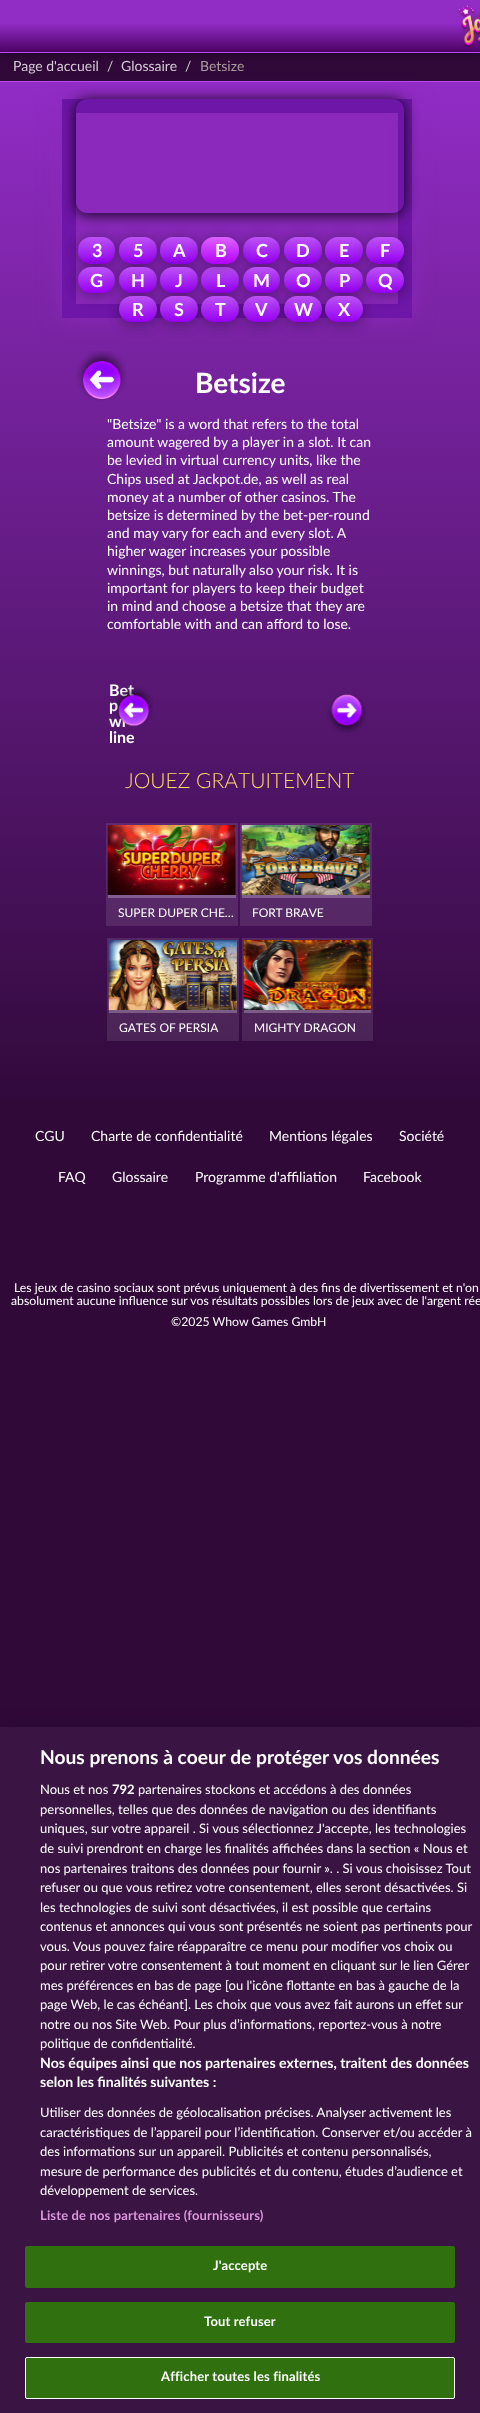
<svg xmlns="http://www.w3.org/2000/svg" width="480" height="2413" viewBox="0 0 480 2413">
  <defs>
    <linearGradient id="g1" gradientUnits="userSpaceOnUse" x1="240" y1="0" x2="240" y2="52"><stop offset="0.45" stop-color="rgb(145,44,197)"/><stop offset="1" stop-color="rgb(77,2,100)"/></linearGradient>
    <linearGradient id="g2" gradientUnits="userSpaceOnUse" x1="240" y1="82" x2="240" y2="1117"><stop offset="0" stop-color="rgb(145,44,197)"/><stop offset="1" stop-color="rgb(48,9,57)"/></linearGradient>
    <linearGradient id="g3" gradientUnits="userSpaceOnUse" x1="240" y1="82" x2="240" y2="1117"><stop offset="0" stop-color="rgb(156,65,203)"/><stop offset="1" stop-color="rgb(69,34,77)"/></linearGradient>
    <linearGradient id="g4" gradientUnits="userSpaceOnUse" x1="240" y1="82" x2="240" y2="1117"><stop offset="0" stop-color="rgb(181,113,216)"/><stop offset="1" stop-color="rgb(116,89,122)"/></linearGradient>
    <clipPath id="clip1"><path d="M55 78H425V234H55ZM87 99H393C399 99 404 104 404 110V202C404 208 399 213 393 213H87C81 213 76 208 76 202V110C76 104 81 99 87 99Z" clip-rule="evenodd"/></clipPath>
    <clipPath id="clip2"><path d="M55 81H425V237H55ZM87 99H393C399 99 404 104 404 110V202C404 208 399 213 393 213H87C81 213 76 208 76 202V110C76 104 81 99 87 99Z" clip-rule="evenodd"/></clipPath>
    <linearGradient id="g5" gradientUnits="userSpaceOnUse" x1="97" y1="237" x2="97" y2="264"><stop offset="0" stop-color="rgb(188,83,245)"/><stop offset="1" stop-color="rgb(151,0,243)"/></linearGradient>
    <linearGradient id="g6" gradientUnits="userSpaceOnUse" x1="138" y1="237" x2="138" y2="264"><stop offset="0" stop-color="rgb(188,83,245)"/><stop offset="1" stop-color="rgb(151,0,243)"/></linearGradient>
    <linearGradient id="g7" gradientUnits="userSpaceOnUse" x1="179" y1="237" x2="179" y2="264"><stop offset="0" stop-color="rgb(188,83,245)"/><stop offset="1" stop-color="rgb(151,0,243)"/></linearGradient>
    <linearGradient id="g8" gradientUnits="userSpaceOnUse" x1="262" y1="237" x2="262" y2="264"><stop offset="0" stop-color="rgb(188,83,245)"/><stop offset="1" stop-color="rgb(151,0,243)"/></linearGradient>
    <linearGradient id="g9" gradientUnits="userSpaceOnUse" x1="97" y1="267" x2="97" y2="293"><stop offset="0" stop-color="rgb(188,83,245)"/><stop offset="1" stop-color="rgb(151,0,243)"/></linearGradient>
    <linearGradient id="g10" gradientUnits="userSpaceOnUse" x1="138" y1="267" x2="138" y2="293"><stop offset="0" stop-color="rgb(188,83,245)"/><stop offset="1" stop-color="rgb(151,0,243)"/></linearGradient>
    <linearGradient id="g11" gradientUnits="userSpaceOnUse" x1="179" y1="267" x2="179" y2="293"><stop offset="0" stop-color="rgb(188,83,245)"/><stop offset="1" stop-color="rgb(151,0,243)"/></linearGradient>
    <linearGradient id="g12" gradientUnits="userSpaceOnUse" x1="220" y1="267" x2="220" y2="293"><stop offset="0" stop-color="rgb(188,83,245)"/><stop offset="1" stop-color="rgb(151,0,243)"/></linearGradient>
    <linearGradient id="g13" gradientUnits="userSpaceOnUse" x1="303" y1="237" x2="303" y2="264"><stop offset="0" stop-color="rgb(188,83,245)"/><stop offset="1" stop-color="rgb(151,0,243)"/></linearGradient>
    <linearGradient id="g14" gradientUnits="userSpaceOnUse" x1="262" y1="267" x2="262" y2="293"><stop offset="0" stop-color="rgb(188,83,245)"/><stop offset="1" stop-color="rgb(151,0,243)"/></linearGradient>
    <linearGradient id="g15" gradientUnits="userSpaceOnUse" x1="220" y1="237" x2="220" y2="264"><stop offset="0" stop-color="rgb(222,98,255)"/><stop offset="1" stop-color="rgb(178,0,255)"/></linearGradient>
    <linearGradient id="g16" gradientUnits="userSpaceOnUse" x1="344" y1="237" x2="344" y2="264"><stop offset="0" stop-color="rgb(188,83,245)"/><stop offset="1" stop-color="rgb(151,0,243)"/></linearGradient>
    <linearGradient id="g17" gradientUnits="userSpaceOnUse" x1="385" y1="237" x2="385" y2="264"><stop offset="0" stop-color="rgb(188,83,245)"/><stop offset="1" stop-color="rgb(151,0,243)"/></linearGradient>
    <linearGradient id="g18" gradientUnits="userSpaceOnUse" x1="303" y1="267" x2="303" y2="293"><stop offset="0" stop-color="rgb(188,83,245)"/><stop offset="1" stop-color="rgb(151,0,243)"/></linearGradient>
    <linearGradient id="g19" gradientUnits="userSpaceOnUse" x1="344" y1="267" x2="344" y2="293"><stop offset="0" stop-color="rgb(188,83,245)"/><stop offset="1" stop-color="rgb(151,0,243)"/></linearGradient>
    <linearGradient id="g20" gradientUnits="userSpaceOnUse" x1="385" y1="267" x2="385" y2="293"><stop offset="0" stop-color="rgb(188,83,245)"/><stop offset="1" stop-color="rgb(151,0,243)"/></linearGradient>
    <linearGradient id="g21" gradientUnits="userSpaceOnUse" x1="138" y1="296" x2="138" y2="322"><stop offset="0" stop-color="rgb(188,83,245)"/><stop offset="1" stop-color="rgb(151,0,243)"/></linearGradient>
    <linearGradient id="g22" gradientUnits="userSpaceOnUse" x1="179" y1="296" x2="179" y2="322"><stop offset="0" stop-color="rgb(188,83,245)"/><stop offset="1" stop-color="rgb(151,0,243)"/></linearGradient>
    <linearGradient id="g23" gradientUnits="userSpaceOnUse" x1="220" y1="296" x2="220" y2="322"><stop offset="0" stop-color="rgb(188,83,245)"/><stop offset="1" stop-color="rgb(151,0,243)"/></linearGradient>
    <linearGradient id="g24" gradientUnits="userSpaceOnUse" x1="262" y1="296" x2="262" y2="322"><stop offset="0" stop-color="rgb(188,83,245)"/><stop offset="1" stop-color="rgb(151,0,243)"/></linearGradient>
    <linearGradient id="g25" gradientUnits="userSpaceOnUse" x1="303" y1="296" x2="303" y2="322"><stop offset="0" stop-color="rgb(188,83,245)"/><stop offset="1" stop-color="rgb(151,0,243)"/></linearGradient>
    <linearGradient id="g26" gradientUnits="userSpaceOnUse" x1="344" y1="296" x2="344" y2="322"><stop offset="0" stop-color="rgb(188,83,245)"/><stop offset="1" stop-color="rgb(151,0,243)"/></linearGradient>
  </defs>
  <rect width="100%" height="100%" fill="rgb(48,9,57)"/>
  <rect x="0" y="2" width="480" height="53" fill="rgba(0,0,0,0.3)" filter="blur(4px)"/>
  <rect x="0" y="0" width="480" height="52" fill="url(#g1)"/>
  <rect x="0" y="52" width="480" height="1" fill="rgb(184,73,241)"/>
  <image x="456" y="5" width="24" height="43" href="pic1.png"/>
  <text x="13" y="71" font-family="Lato" font-size="14" fill="rgb(214,206,215)">Page d'accueil</text>
  <text x="107" y="71" font-family="Lato" font-size="14" fill="rgb(204,204,204)">/</text>
  <text x="121" y="71" font-family="Lato" font-size="14" fill="rgb(214,206,215)">Glossaire</text>
  <text x="185" y="71" font-family="Lato" font-size="14" fill="rgb(204,204,204)">/</text>
  <text x="200" y="71" font-family="Lato" font-size="14" fill="rgb(172,157,157)">Betsize</text>
  <rect x="0" y="82" width="480" height="1017" fill="url(#g2)"/>
  <rect x="242" y="938" width="131" height="103" fill="url(#g3)"/>
  <rect x="244" y="940" width="127" height="73" fill="url(#g4)"/>
  <rect x="107" y="938" width="132" height="103" fill="url(#g3)"/>
  <rect x="109" y="940" width="128" height="73" fill="url(#g4)"/>
  <rect x="240" y="823" width="132" height="103" fill="url(#g3)"/>
  <rect x="242" y="825" width="128" height="73" fill="url(#g4)"/>
  <rect x="106" y="823" width="132" height="103" fill="url(#g3)"/>
  <rect x="108" y="825" width="128" height="73" fill="url(#g4)"/>
  <rect x="0" y="81" width="480" height="1" fill="rgb(184,73,241)"/>
  <image x="76" y="351" width="51" height="50" href="pic2.png"/>
  <rect x="62" y="99" width="350" height="219" fill="rgb(138,41,187)" filter="blur(11px)"/>
  <rect x="69" y="106" width="336" height="205" fill="none" stroke="rgb(110,22,167)" stroke-width="14"/>
  <g clip-path="url(#clip1)">
    <rect x="76" y="99" width="328" height="114" rx="11" fill="rgba(0,0,0,0.5)" filter="blur(6.5px)"/>
  </g>
  <g clip-path="url(#clip2)">
    <rect x="76" y="102" width="328" height="114" rx="11" fill="rgba(0,0,0,0.5)" filter="blur(6.5px)"/>
  </g>
  <rect x="78" y="237" width="37" height="27" rx="13" fill="rgba(0,0,0,0.2)" filter="blur(6.5px)"/>
  <rect x="78" y="240" width="37" height="27" rx="13" fill="rgba(0,0,0,0.2)" filter="blur(6.5px)"/>
  <rect x="78" y="237" width="37" height="27" rx="13" fill="url(#g5)"/>
  <text x="92" y="257" font-family="Lato" font-size="18" font-weight="bold" fill="rgb(255,255,255)">3</text>
  <rect x="119" y="237" width="38" height="27" rx="13" fill="rgba(0,0,0,0.2)" filter="blur(6.5px)"/>
  <rect x="119" y="240" width="38" height="27" rx="13" fill="rgba(0,0,0,0.2)" filter="blur(6.5px)"/>
  <rect x="119" y="237" width="38" height="27" rx="13" fill="url(#g6)"/>
  <text x="133" y="257" font-family="Lato" font-size="18" font-weight="bold" fill="rgb(255,255,255)">5</text>
  <rect x="160" y="237" width="38" height="27" rx="13" fill="rgba(0,0,0,0.2)" filter="blur(6.5px)"/>
  <rect x="160" y="240" width="38" height="27" rx="13" fill="rgba(0,0,0,0.2)" filter="blur(6.5px)"/>
  <rect x="160" y="237" width="38" height="27" rx="13" fill="url(#g7)"/>
  <text x="173" y="257" font-family="Lato" font-size="18" font-weight="bold" fill="rgb(255,255,255)">A</text>
  <rect x="243" y="237" width="37" height="27" rx="13" fill="rgba(0,0,0,0.2)" filter="blur(6.5px)"/>
  <rect x="243" y="240" width="37" height="27" rx="13" fill="rgba(0,0,0,0.2)" filter="blur(6.5px)"/>
  <rect x="243" y="237" width="37" height="27" rx="13" fill="url(#g8)"/>
  <rect x="78" y="267" width="37" height="26" rx="13" fill="rgba(0,0,0,0.2)" filter="blur(6.5px)"/>
  <rect x="78" y="270" width="37" height="26" rx="13" fill="rgba(0,0,0,0.2)" filter="blur(6.5px)"/>
  <rect x="78" y="267" width="37" height="26" rx="13" fill="url(#g9)"/>
  <rect x="119" y="267" width="38" height="26" rx="13" fill="rgba(0,0,0,0.2)" filter="blur(6.5px)"/>
  <rect x="119" y="270" width="38" height="26" rx="13" fill="rgba(0,0,0,0.2)" filter="blur(6.5px)"/>
  <rect x="119" y="267" width="38" height="26" rx="13" fill="url(#g10)"/>
  <rect x="160" y="267" width="38" height="26" rx="13" fill="rgba(0,0,0,0.2)" filter="blur(6.5px)"/>
  <rect x="160" y="270" width="38" height="26" rx="13" fill="rgba(0,0,0,0.2)" filter="blur(6.5px)"/>
  <rect x="160" y="267" width="38" height="26" rx="13" fill="url(#g11)"/>
  <rect x="201" y="267" width="38" height="26" rx="13" fill="rgba(0,0,0,0.2)" filter="blur(6.5px)"/>
  <rect x="201" y="270" width="38" height="26" rx="13" fill="rgba(0,0,0,0.2)" filter="blur(6.5px)"/>
  <rect x="201" y="267" width="38" height="26" rx="13" fill="url(#g12)"/>
  <rect x="284" y="237" width="38" height="27" rx="13" fill="rgba(0,0,0,0.2)" filter="blur(6.5px)"/>
  <rect x="284" y="240" width="38" height="27" rx="13" fill="rgba(0,0,0,0.2)" filter="blur(6.5px)"/>
  <rect x="284" y="237" width="38" height="27" rx="13" fill="url(#g13)"/>
  <rect x="243" y="267" width="37" height="26" rx="13" fill="rgba(0,0,0,0.2)" filter="blur(6.5px)"/>
  <rect x="243" y="270" width="37" height="26" rx="13" fill="rgba(0,0,0,0.2)" filter="blur(6.5px)"/>
  <rect x="243" y="267" width="37" height="26" rx="13" fill="url(#g14)"/>
  <rect x="201" y="237" width="38" height="27" rx="13" fill="rgba(0,0,0,0.2)" filter="blur(6.5px)"/>
  <rect x="201" y="240" width="38" height="27" rx="13" fill="rgba(0,0,0,0.2)" filter="blur(6.5px)"/>
  <rect x="201" y="237" width="38" height="27" rx="13" fill="url(#g15)"/>
  <g font-family="Lato" font-size="18" font-weight="bold" fill="rgb(255,255,255)">
    <text x="215" y="257">B</text>
    <text x="256" y="257">C</text>
    <text x="296" y="257">D</text>
  </g>
  <rect x="325" y="237" width="38" height="27" rx="13" fill="rgba(0,0,0,0.2)" filter="blur(6.5px)"/>
  <rect x="325" y="240" width="38" height="27" rx="13" fill="rgba(0,0,0,0.2)" filter="blur(6.5px)"/>
  <rect x="325" y="237" width="38" height="27" rx="13" fill="url(#g16)"/>
  <text x="339" y="257" font-family="Lato" font-size="18" font-weight="bold" fill="rgb(255,255,255)">E</text>
  <rect x="366" y="237" width="38" height="27" rx="13" fill="rgba(0,0,0,0.2)" filter="blur(6.5px)"/>
  <rect x="366" y="240" width="38" height="27" rx="13" fill="rgba(0,0,0,0.2)" filter="blur(6.5px)"/>
  <rect x="366" y="237" width="38" height="27" rx="13" fill="url(#g17)"/>
  <g font-family="Lato" font-size="18" font-weight="bold" fill="rgb(255,255,255)">
    <text x="380" y="257">F</text>
    <text x="90" y="287">G</text>
    <text x="131" y="287">H</text>
    <text x="175" y="287">J</text>
    <text x="216" y="287">L</text>
    <text x="253" y="287">M</text>
  </g>
  <rect x="284" y="267" width="38" height="26" rx="13" fill="rgba(0,0,0,0.2)" filter="blur(6.5px)"/>
  <rect x="284" y="270" width="38" height="26" rx="13" fill="rgba(0,0,0,0.2)" filter="blur(6.5px)"/>
  <rect x="284" y="267" width="38" height="26" rx="13" fill="url(#g18)"/>
  <text x="296" y="287" font-family="Lato" font-size="18" font-weight="bold" fill="rgb(255,255,255)">O</text>
  <rect x="325" y="267" width="38" height="26" rx="13" fill="rgba(0,0,0,0.2)" filter="blur(6.5px)"/>
  <rect x="325" y="270" width="38" height="26" rx="13" fill="rgba(0,0,0,0.2)" filter="blur(6.5px)"/>
  <rect x="325" y="267" width="38" height="26" rx="13" fill="url(#g19)"/>
  <text x="339" y="287" font-family="Lato" font-size="18" font-weight="bold" fill="rgb(255,255,255)">P</text>
  <rect x="366" y="267" width="38" height="26" rx="13" fill="rgba(0,0,0,0.2)" filter="blur(6.5px)"/>
  <rect x="366" y="270" width="38" height="26" rx="13" fill="rgba(0,0,0,0.2)" filter="blur(6.5px)"/>
  <rect x="366" y="267" width="38" height="26" rx="13" fill="url(#g20)"/>
  <text x="378" y="287" font-family="Lato" font-size="18" font-weight="bold" fill="rgb(255,255,255)">Q</text>
  <rect x="119" y="296" width="38" height="26" rx="13" fill="rgba(0,0,0,0.2)" filter="blur(6.5px)"/>
  <rect x="119" y="299" width="38" height="26" rx="13" fill="rgba(0,0,0,0.2)" filter="blur(6.5px)"/>
  <rect x="119" y="296" width="38" height="26" rx="13" fill="url(#g21)"/>
  <text x="132" y="316" font-family="Lato" font-size="18" font-weight="bold" fill="rgb(255,255,255)">R</text>
  <rect x="160" y="296" width="38" height="26" rx="13" fill="rgba(0,0,0,0.2)" filter="blur(6.5px)"/>
  <rect x="160" y="299" width="38" height="26" rx="13" fill="rgba(0,0,0,0.2)" filter="blur(6.5px)"/>
  <rect x="160" y="296" width="38" height="26" rx="13" fill="url(#g22)"/>
  <text x="174" y="316" font-family="Lato" font-size="18" font-weight="bold" fill="rgb(255,255,255)">S</text>
  <rect x="201" y="296" width="38" height="26" rx="13" fill="rgba(0,0,0,0.2)" filter="blur(6.5px)"/>
  <rect x="201" y="299" width="38" height="26" rx="13" fill="rgba(0,0,0,0.2)" filter="blur(6.5px)"/>
  <rect x="201" y="296" width="38" height="26" rx="13" fill="url(#g23)"/>
  <text x="215" y="316" font-family="Lato" font-size="18" font-weight="bold" fill="rgb(255,255,255)">T</text>
  <rect x="243" y="296" width="37" height="26" rx="13" fill="rgba(0,0,0,0.2)" filter="blur(6.5px)"/>
  <rect x="243" y="299" width="37" height="26" rx="13" fill="rgba(0,0,0,0.2)" filter="blur(6.5px)"/>
  <rect x="243" y="296" width="37" height="26" rx="13" fill="url(#g24)"/>
  <text x="255" y="316" font-family="Lato" font-size="18" font-weight="bold" fill="rgb(255,255,255)">V</text>
  <rect x="284" y="296" width="38" height="26" rx="13" fill="rgba(0,0,0,0.2)" filter="blur(6.5px)"/>
  <rect x="284" y="299" width="38" height="26" rx="13" fill="rgba(0,0,0,0.2)" filter="blur(6.5px)"/>
  <rect x="284" y="296" width="38" height="26" rx="13" fill="url(#g25)"/>
  <text x="294" y="316" font-family="Lato" font-size="18" font-weight="bold" fill="rgb(255,255,255)">W</text>
  <rect x="325" y="296" width="38" height="26" rx="13" fill="rgba(0,0,0,0.2)" filter="blur(6.5px)"/>
  <rect x="325" y="299" width="38" height="26" rx="13" fill="rgba(0,0,0,0.2)" filter="blur(6.5px)"/>
  <rect x="325" y="296" width="38" height="26" rx="13" fill="url(#g26)"/>
  <text x="338" y="316" font-family="Lato" font-size="18" font-weight="bold" fill="rgb(255,255,255)">X</text>
  <text x="195" y="393" font-family="Lato" font-size="28" font-weight="bold" fill="rgb(255,255,255)">Betsize</text>
  <g font-family="Lato" font-size="14" fill="rgb(255,255,255)">
    <text>
      <tspan x="107" y="429">"Betsize" is a word that refers to the total</tspan>
      <tspan x="107" y="447">amount wagered by a player in a slot. It can</tspan>
      <tspan x="107" y="465">be levied in virtual currency units, like the</tspan>
      <tspan x="107" y="484">Chips used at Jackpot.de, as well as real</tspan>
      <tspan x="107" y="502">money at a number of other casinos. The</tspan>
      <tspan x="107" y="520">betsize is determined by the bet-per-round</tspan>
      <tspan x="107" y="538">and may vary for each and every slot. A</tspan>
      <tspan x="107" y="556">higher wager increases your possible</tspan>
      <tspan x="107" y="575">winnings, but naturally also your risk. It is</tspan>
      <tspan x="107" y="593">important for players to keep their budget</tspan>
      <tspan x="107" y="611">in mind and choose a betsize that they are</tspan>
      <tspan x="107" y="629">comfortable with and can afford to lose.</tspan>
    </text>
  </g>
  <g font-family="Lato" font-size="16" font-weight="bold" fill="rgb(255,255,255)">
    <text>
      <tspan x="109" y="696">Bet</tspan>
      <tspan x="109" y="711">p</tspan>
      <tspan x="109" y="727">wi</tspan>
    </text>
  </g>
  <image x="113" y="687" width="40" height="40" href="pic3.png"/>
  <text x="109" y="743" font-family="Lato" font-size="16" font-weight="bold" fill="rgb(255,255,255)">line</text>
  <image x="327" y="694" width="40" height="39" href="pic4.png"/>
  <text x="125" y="788" font-family="Lato" font-size="21" font-weight="300" fill="rgb(255,217,102)">JOUEZ GRATUITEMENT</text>
  <image x="107" y="825" width="129" height="70" href="pic5.png"/>
  <text x="118" y="917" font-family="Lato" font-size="12" fill="rgb(255,255,255)">SUPER DUPER CHE…</text>
  <image x="241" y="825" width="129" height="70" href="pic6.png"/>
  <text x="252" y="917" font-family="Lato" font-size="12" fill="rgb(255,255,255)">FORT BRAVE</text>
  <image x="108" y="940" width="129" height="70" href="pic7.png"/>
  <text x="119" y="1032" font-family="Lato" font-size="12" fill="rgb(255,255,255)">GATES OF PERSIA</text>
  <image x="243" y="940" width="128" height="70" href="pic8.png"/>
  <text x="254" y="1032" font-family="Lato" font-size="12" fill="rgb(255,255,255)">MIGHTY DRAGON</text>
  <g font-family="Lato" font-size="14" fill="rgb(255,255,255)">
    <text x="35" y="1141">CGU</text>
    <text x="91" y="1141">Charte de confidentialité</text>
    <text x="269" y="1141">Mentions légales</text>
    <text x="399" y="1141">Société</text>
    <text x="58" y="1182">FAQ</text>
    <text x="112" y="1182">Glossaire</text>
    <text x="195" y="1182">Programme d'affiliation</text>
    <text x="363" y="1182">Facebook</text>
  </g>
  <g font-family="Lato" font-size="12.25" fill="rgb(255,255,255)">
    <text x="14" y="1292">Les jeux de casino sociaux sont prévus uniquement à des fins de divertissement et n'on</text>
    <text x="11" y="1305">absolument aucune influence sur vos résultats possibles lors de jeux avec de l'argent rée</text>
    <text x="171" y="1326">©2025 Whow Games GmbH</text>
  </g>
  <rect x="0" y="1727" width="480" height="686" fill="rgba(0,0,0,0.2)" filter="blur(9px)"/>
  <rect x="0" y="1727" width="480" height="686" fill="rgb(58,20,67)"/>
  <text x="40" y="1764" font-family="Lato" font-size="19.2" font-weight="bold" fill="rgb(255,255,255)">Nous prenons à coeur de protéger vos données</text>
  <text x="40" y="1794" font-family="Lato" font-size="13" fill="rgb(255,255,255)">Nous et nos</text>
  <text x="112" y="1794" font-family="Lato" font-size="13" font-weight="bold" fill="rgb(255,255,255)">792</text>
  <g font-family="Lato" font-size="13" fill="rgb(255,255,255)">
    <text x="138" y="1794">partenaires stockons et accédons à des données</text>
    <text>
      <tspan x="40" y="1814">personnelles, telles que des données de navigation ou des identifiants</tspan>
      <tspan x="40" y="1833">uniques, sur votre appareil . Si vous sélectionnez J'accepte, les technologies</tspan>
      <tspan x="40" y="1853">de suivi prendront en charge les finalités affichées dans la section « Nous et</tspan>
      <tspan x="40" y="1873">nos partenaires traitons des données pour fournir ». . Si vous choisissez Tout</tspan>
      <tspan x="40" y="1892">refuser ou que vous retirez votre consentement, elles seront désactivées. Si</tspan>
      <tspan x="40" y="1912">les technologies de suivi sont désactivées, il est possible que certains</tspan>
      <tspan x="40" y="1931">contenus et annonces qui vous sont présentés ne soient pas pertinents pour</tspan>
      <tspan x="40" y="1951">vous. Vous pouvez faire réapparaître ce menu pour modifier vos choix ou</tspan>
      <tspan x="40" y="1970">pour retirer votre consentement à tout moment en cliquant sur le lien Gérer</tspan>
      <tspan x="40" y="1990">mes préférences en bas de page [ou l'icône flottante en bas à gauche de la</tspan>
      <tspan x="40" y="2009">page Web, le cas échéant]. Les choix que vous avez fait aurons un effet sur</tspan>
      <tspan x="40" y="2029">notre ou nos Site Web. Pour plus d’informations, reportez-vous à notre</tspan>
      <tspan x="40" y="2048">politique de confidentialité.</tspan>
    </text>
  </g>
  <g font-family="Lato" font-size="14.1" font-weight="bold" fill="rgb(255,255,255)">
    <text>
      <tspan x="40" y="2068">Nos équipes ainsi que nos partenaires externes, traitent des données</tspan>
      <tspan x="40" y="2087">selon les finalités suivantes :</tspan>
    </text>
  </g>
  <g font-family="Lato" font-size="13" fill="rgb(255,255,255)">
    <text>
      <tspan x="40" y="2117">Utiliser des données de géolocalisation précises. Analyser activement les</tspan>
      <tspan x="40" y="2137">caractéristiques de l’appareil pour l’identification. Conserver et/ou accéder à</tspan>
      <tspan x="40" y="2156">des informations sur un appareil. Publicités et contenu personnalisés,</tspan>
      <tspan x="40" y="2176">mesure de performance des publicités et du contenu, études d’audience et</tspan>
      <tspan x="40" y="2195">développement de services.</tspan>
    </text>
  </g>
  <text x="40" y="2220" font-family="Lato" font-size="13" font-weight="bold" letter-spacing="0.15" fill="rgb(221,151,221)">Liste de nos partenaires (fournisseurs)</text>
  <rect x="25.5" y="2246.5" width="429" height="41" rx="1.5" fill="rgb(48,112,15)" stroke="rgb(48,112,15)"/>
  <text x="213" y="2270" font-family="Lato" font-size="13" font-weight="bold" letter-spacing="0.15" fill="rgb(255,255,255)">J'accepte</text>
  <rect x="25.5" y="2302.5" width="429" height="40" rx="1.5" fill="rgb(48,112,15)" stroke="rgb(48,112,15)"/>
  <text x="204" y="2326" font-family="Lato" font-size="13" font-weight="bold" letter-spacing="0.15" fill="rgb(255,255,255)">Tout refuser</text>
  <rect x="25.5" y="2357.5" width="429" height="41" rx="1.5" fill="rgb(48,112,15)" stroke="rgb(255,255,255)"/>
  <text x="161" y="2381" font-family="Lato" font-size="13" font-weight="bold" letter-spacing="0.15" fill="rgb(255,255,255)">Afficher toutes les finalités</text>
</svg>
